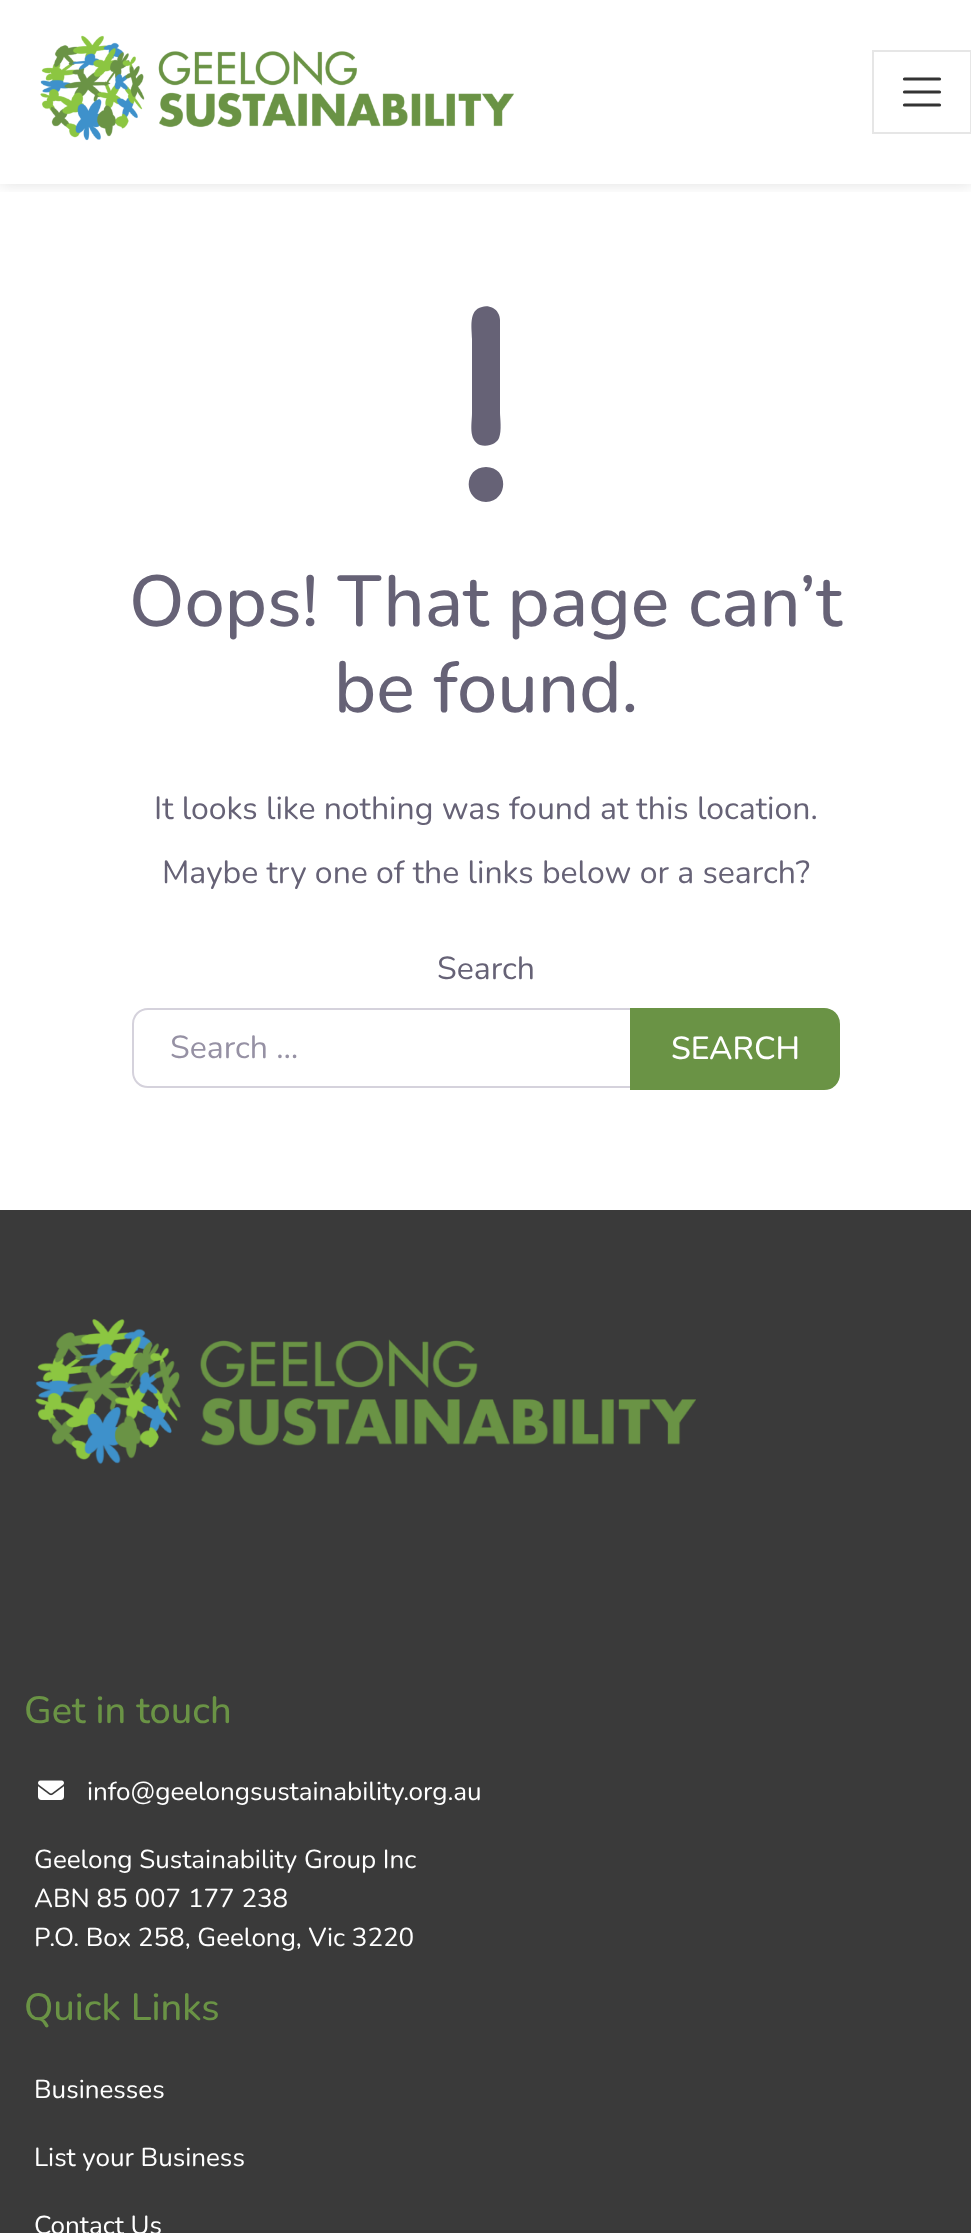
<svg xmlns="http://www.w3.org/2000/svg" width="971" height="2233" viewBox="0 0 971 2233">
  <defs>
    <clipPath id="clip1"><rect x="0" y="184" width="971" height="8"/></clipPath>
  </defs>
  <rect width="100%" height="100%" fill="rgb(255,255,255)"/>
  <g clip-path="url(#clip1)">
    <rect x="0" y="0" width="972" height="184" fill="rgba(0,0,0,0.12)" filter="blur(8px)"/>
  </g>
  <image x="40" y="35" width="474" height="106" href="pic1.png"/>
  <rect x="873" y="51" width="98" height="82" fill="none" stroke="rgb(230,230,230)" stroke-width="2"/>
  <path d="M904.5 79H939.5M904.5 92H939.5M904.5 105H939.5" fill="none" stroke="rgb(51,51,51)" stroke-width="3.2" stroke-linecap="round"/>
  <path d="M500 320C500 315 497 310 493 308C489 306 485 306 482 307C468 310 472 329 472 339V413C472 423 468 440 480 445C483 446 487 446 490 445C494 444 498 441 499 438C502 431 500 417 500 413ZM486 502C509 501 509 467 486 467C463 467 463 501 486 502Z" fill="rgb(102,98,118)"/>
  <g font-family="Nunito" font-size="72" font-weight="500" fill="rgb(102,98,118)">
    <text x="129" y="626">Oops! That page can’t</text>
    <text x="334" y="712">be found.</text>
  </g>
  <g font-family="Nunito" font-size="32" fill="rgb(102,98,118)">
    <text x="154" y="819">It looks like nothing was found at this location.</text>
    <text x="162" y="883">Maybe try one of the links below or a search?</text>
    <text x="437" y="979">Search</text>
  </g>
  <path d="M148 1009H631V1087H148C139.5 1087 133 1080.5 133 1072V1024C133 1015.5 139.5 1009 148 1009Z" fill="none" stroke="rgb(213,210,220)" stroke-width="2"/>
  <text x="170" y="1058" font-family="Nunito" font-size="32" fill="rgb(150,145,164)">Search …</text>
  <path d="M631 1009H824C832.5 1009 839 1015.5 839 1024V1074C839 1082.5 832.5 1089 824 1089H631Z" fill="rgb(106,147,69)" stroke="rgb(106,147,69)" stroke-width="2"/>
  <text x="671" y="1059" font-family="Nunito" font-size="32" font-weight="500" fill="rgb(255,255,255)">SEARCH</text>
  <rect x="0" y="1210" width="971" height="1023" fill="rgb(58,58,58)"/>
  <image x="35" y="1319" width="661" height="146" href="pic2.png"/>
  <text x="24" y="1723" font-family="Nunito" font-size="38" font-weight="500" fill="rgb(106,147,69)">Get in touch</text>
  <image x="38" y="1780" width="26" height="20" href="pic3.png"/>
  <g font-family="Nunito" font-size="26" fill="rgb(255,255,255)">
    <text x="87" y="1800">info@geelongsustainability.org.au</text>
    <text>
      <tspan x="34" y="1868">Geelong Sustainability Group Inc</tspan>
      <tspan x="34" y="1907">ABN 85 007 177 238</tspan>
      <tspan x="34" y="1946">P.O. Box 258, Geelong, Vic 3220</tspan>
    </text>
  </g>
  <text x="24" y="2020" font-family="Nunito" font-size="38" font-weight="500" fill="rgb(106,147,69)">Quick Links</text>
  <g font-family="Nunito" font-size="26" fill="rgb(255,255,255)">
    <text x="34" y="2098">Businesses</text>
    <text x="34" y="2166">List your Business</text>
    <text x="34" y="2234">Contact Us</text>
  </g>
</svg>
